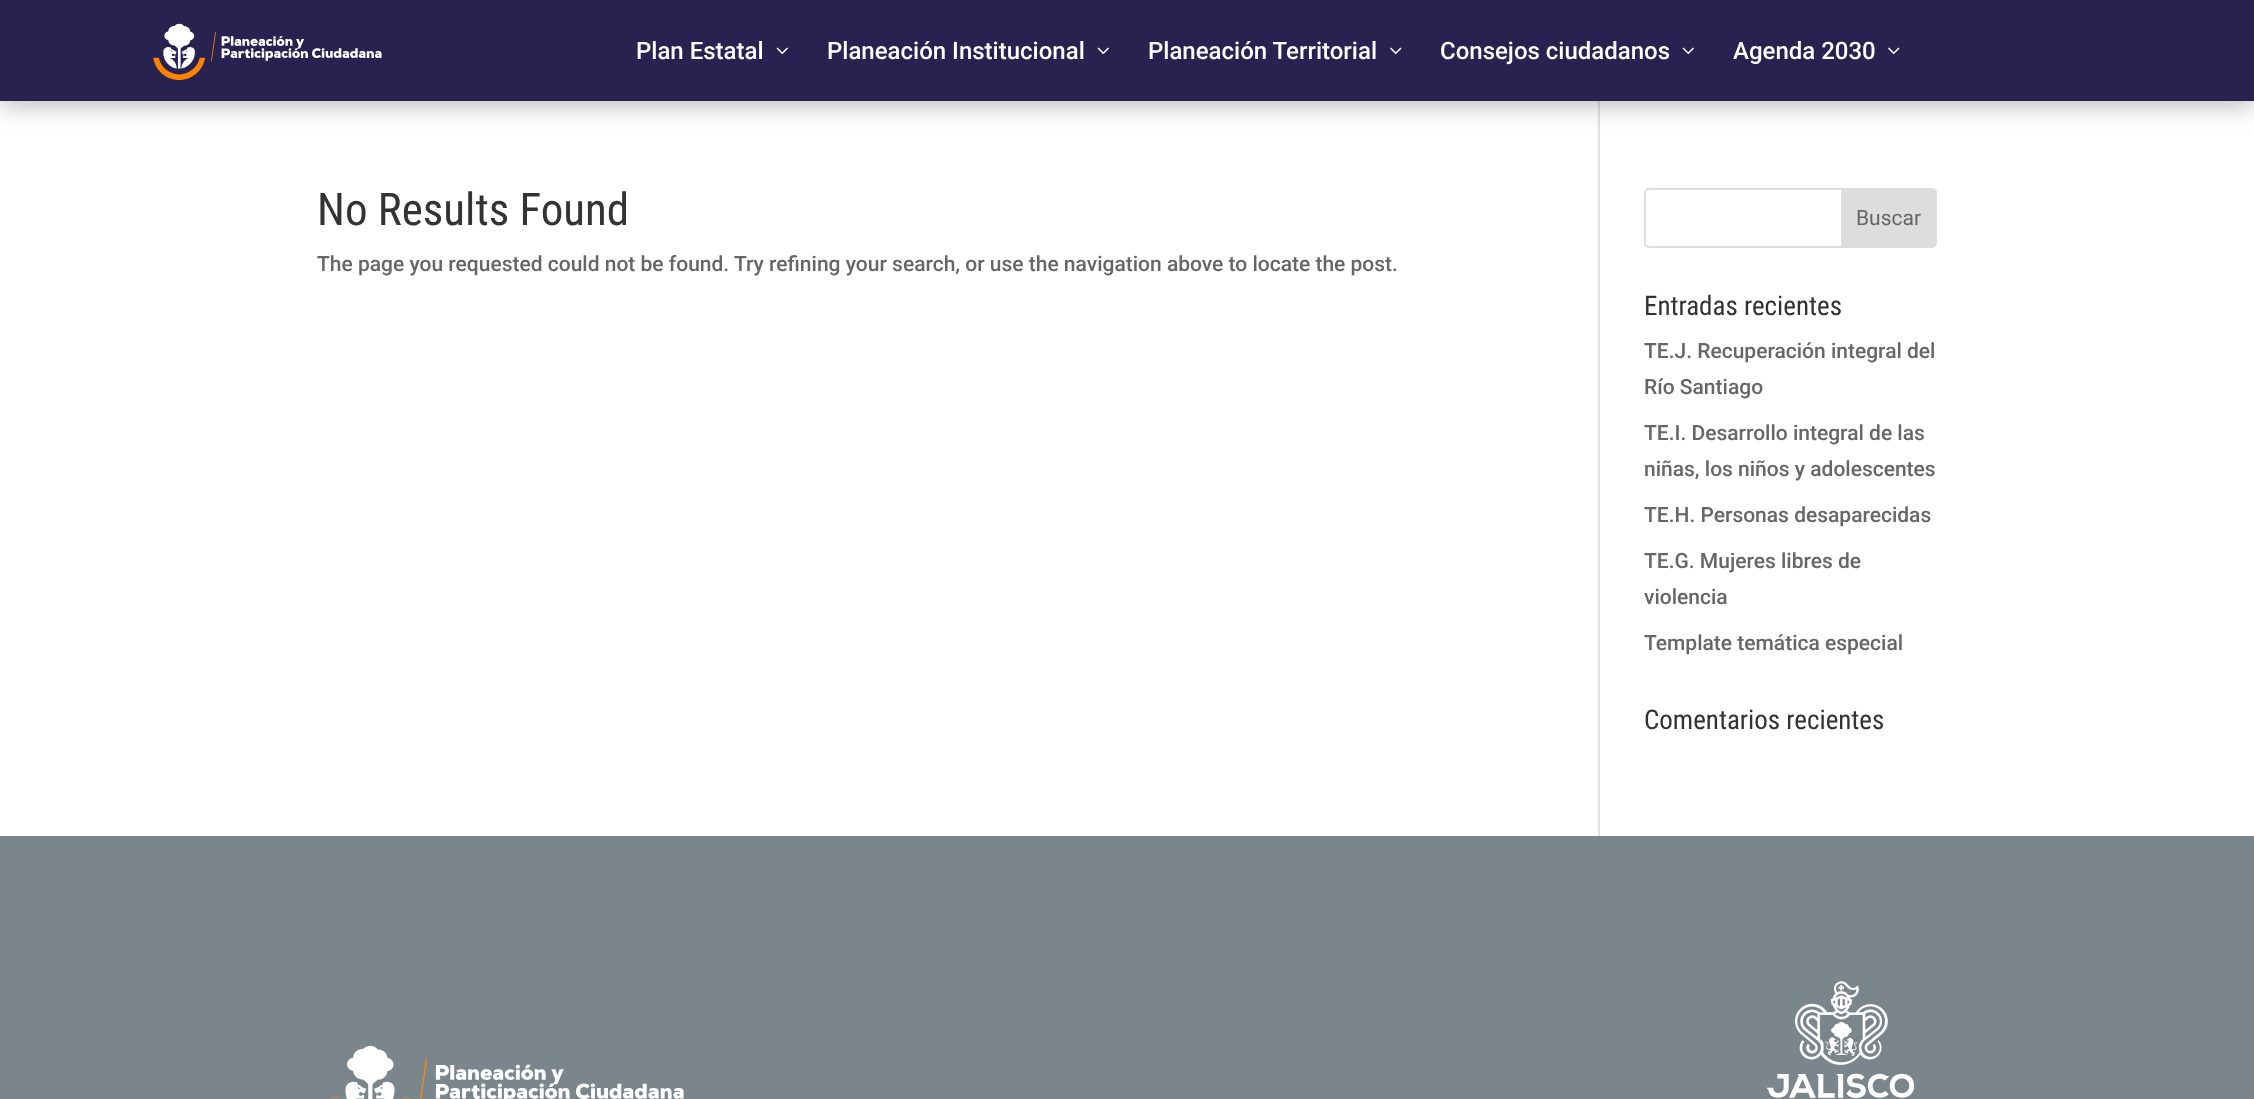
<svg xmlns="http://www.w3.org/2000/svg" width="2254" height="1099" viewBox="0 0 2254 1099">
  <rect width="100%" height="100%" fill="rgb(255,255,255)"/>
  <rect x="1598" y="101" width="2" height="735" fill="rgb(226,226,226)"/>
  <rect x="0" y="3" width="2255" height="101" fill="rgba(0,0,0,0.3)" filter="blur(13.5px)"/>
  <rect x="0" y="0" width="2254" height="101" fill="rgb(39,34,79)"/>
  <image x="153" y="23" width="229" height="57" href="pic1.png"/>
  <text x="636" y="59" font-family="Roboto" font-size="24" font-weight="500" fill="rgb(255,255,255)">Plan Estatal</text>
  <image x="776" y="47" width="12" height="7" href="pic2.png"/>
  <text x="827" y="59" font-family="Roboto" font-size="24" font-weight="500" fill="rgb(255,255,255)">Planeación Institucional</text>
  <image x="1097" y="47" width="12" height="7" href="pic2.png"/>
  <text x="1148" y="59" font-family="Roboto" font-size="24" font-weight="500" fill="rgb(255,255,255)">Planeación Territorial</text>
  <image x="1390" y="47" width="12" height="7" href="pic3.png"/>
  <text x="1440" y="59" font-family="Roboto" font-size="24" font-weight="500" fill="rgb(255,255,255)">Consejos ciudadanos</text>
  <image x="1682" y="47" width="12" height="7" href="pic2.png"/>
  <text x="1733" y="59" font-family="Roboto" font-size="24" font-weight="500" fill="rgb(255,255,255)">Agenda 2030</text>
  <image x="1888" y="47" width="12" height="7" href="pic3.png"/>
  <text x="317" y="225" font-family="Roboto Condensed" font-size="45" fill="rgb(51,51,51)">No Results Found</text>
  <text x="317" y="271" font-family="Roboto" font-size="21" font-weight="500" fill="rgb(102,102,102)">The page you requested could not be found. Try refining your search, or use the navigation above to locate the post.</text>
  <rect x="1645" y="189" width="291" height="58" rx="4" fill="none" stroke="rgb(221,221,221)" stroke-width="2"/>
  <path d="M1842 189H1932C1934 189 1936 191 1936 193V243C1936 245 1934 247 1932 247H1842Z" fill="rgb(221,221,221)" stroke="rgb(221,221,221)" stroke-width="2"/>
  <text x="1856" y="225" font-family="Roboto" font-size="21" fill="rgb(102,102,102)">Buscar</text>
  <text x="1644" y="315" font-family="Roboto Condensed" font-size="27" fill="rgb(51,51,51)">Entradas recientes</text>
  <g font-family="Roboto" font-size="21" font-weight="500" fill="rgb(102,102,102)">
    <text>
      <tspan x="1644" y="358">TE.J. Recuperación integral del</tspan>
      <tspan x="1644" y="394">Río Santiago</tspan>
    </text>
    <text>
      <tspan x="1644" y="440">TE.I. Desarrollo integral de las</tspan>
      <tspan x="1644" y="476">niñas, los niños y adolescentes</tspan>
    </text>
    <text x="1644" y="522">TE.H. Personas desaparecidas</text>
    <text>
      <tspan x="1644" y="568">TE.G. Mujeres libres de</tspan>
      <tspan x="1644" y="604">violencia</tspan>
    </text>
    <text x="1644" y="650">Template temática especial</text>
  </g>
  <text x="1644" y="729" font-family="Roboto Condensed" font-size="27" fill="rgb(51,51,51)">Comentarios recientes</text>
  <rect x="0" y="836" width="2254" height="263" fill="rgb(123,134,140)"/>
  <image x="330" y="1045" width="354" height="54" href="pic4.png"/>
  <image x="1766" y="981" width="149" height="117" href="pic5.png"/>
</svg>
